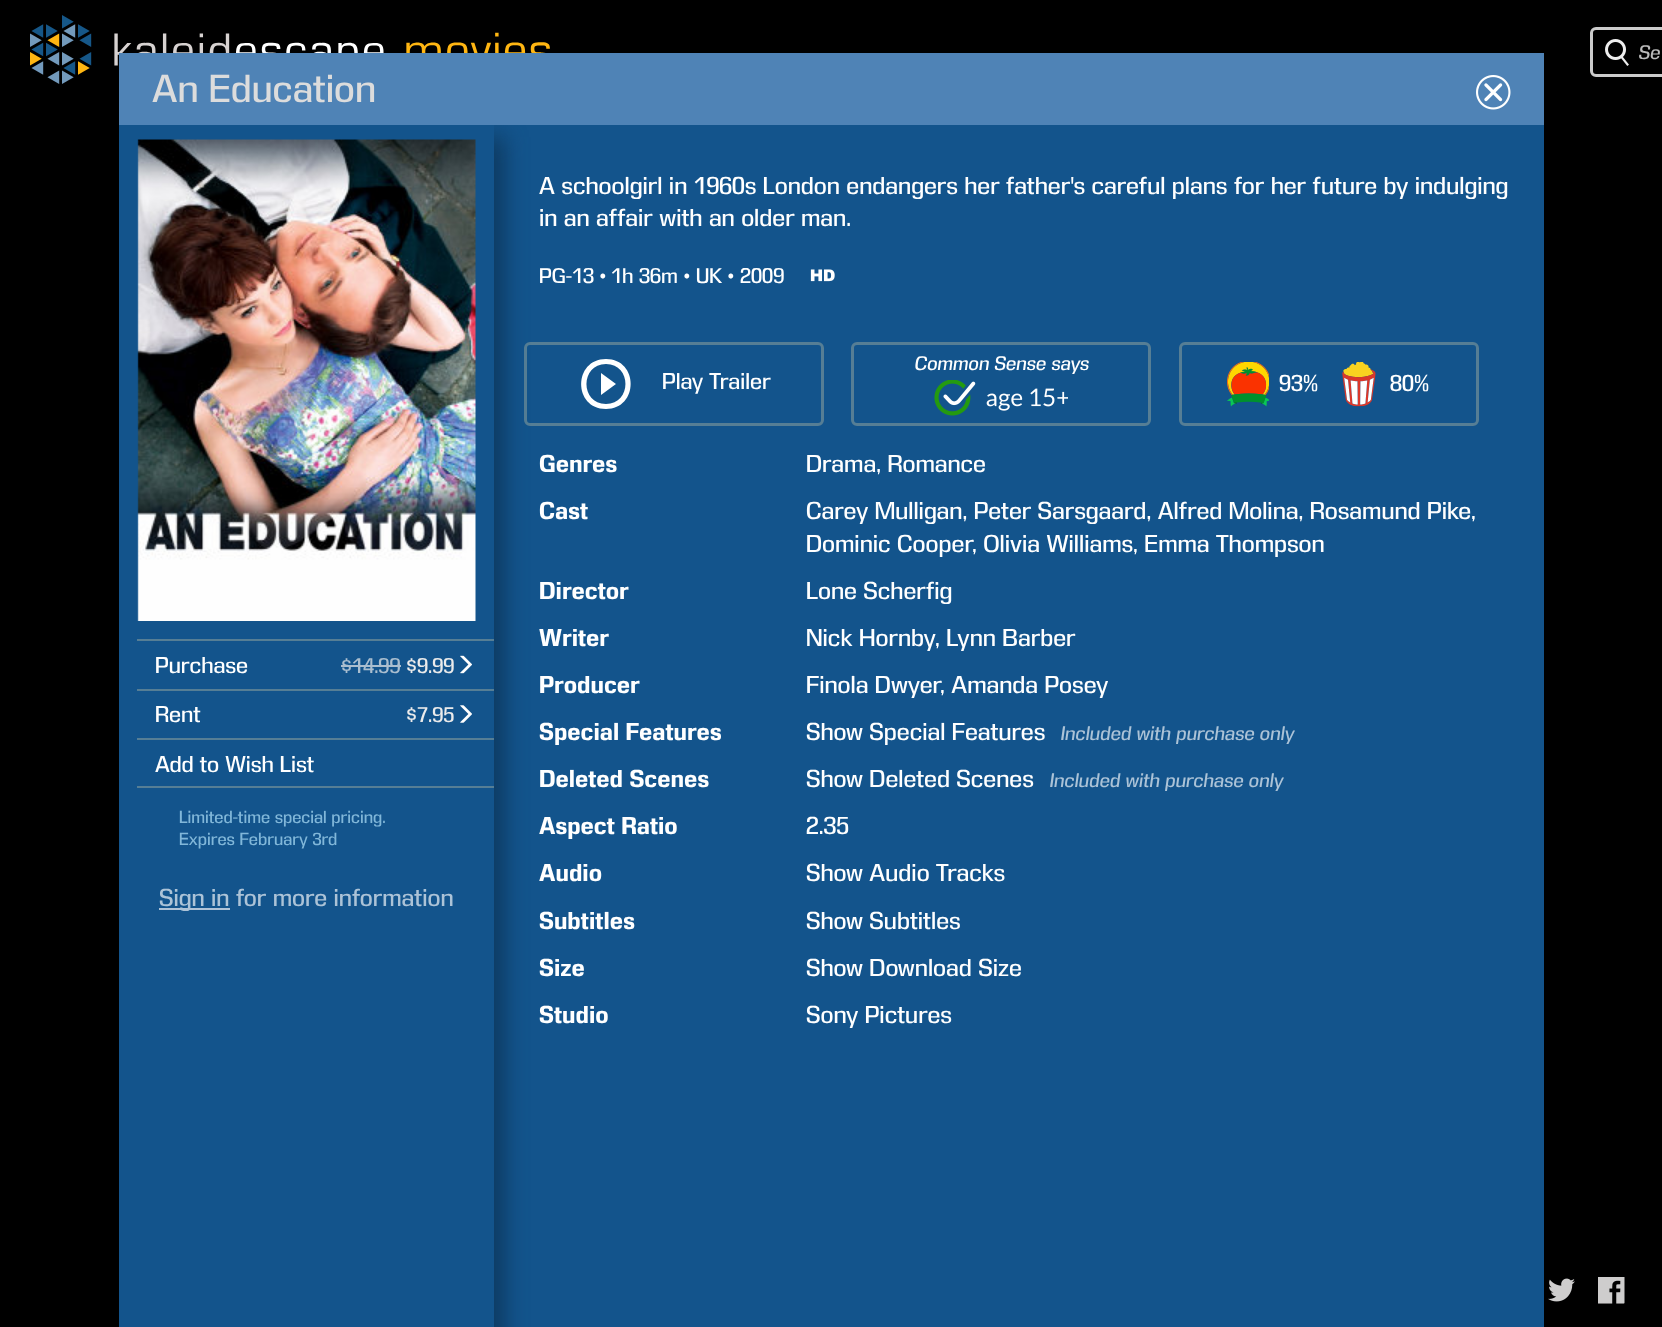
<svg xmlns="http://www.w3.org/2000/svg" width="1662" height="1327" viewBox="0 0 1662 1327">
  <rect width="100%" height="100%" fill="rgb(0,0,0)"/>
  <image x="30" y="15" width="520" height="69" href="pic1.png"/>
  <image x="1605" y="39" width="24" height="27" href="pic2.png"/>
  <rect x="1591.5" y="28.5" width="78" height="47" rx="4.5" fill="none" stroke="rgb(203,203,203)" stroke-width="3"/>
  <text x="1638" y="59" font-family="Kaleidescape" font-size="18" font-style="italic" fill="rgb(187,187,187)">Se</text>
  <image x="1548" y="1278" width="27" height="24" href="pic3.png"/>
  <image x="1598" y="1277" width="27" height="27" href="pic4.png"/>
  <rect x="494" y="125" width="1050" height="1202" fill="rgb(19,84,140)"/>
  <rect x="525.5" y="343.5" width="297" height="81" rx="4.5" fill="none" stroke="rgb(86,126,149)" stroke-width="3"/>
  <rect x="153" y="137" width="351" height="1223" fill="rgb(13,57,95)" filter="blur(11px)"/>
  <rect x="119" y="53" width="1425" height="72" fill="rgb(79,131,182)"/>
  <text x="152" y="102" font-family="Kaleidescape" font-size="36" fill="rgb(220,220,220)">An Education</text>
  <image x="1476" y="75" width="35" height="35" href="pic5.png"/>
  <rect x="119" y="125" width="375" height="1202" fill="rgb(19,84,140)"/>
  <image x="137" y="139" width="339" height="482" href="pic6.png"/>
  <rect x="137" y="639" width="357" height="2" fill="rgb(86,126,149)"/>
  <text x="155" y="673" font-family="Kaleidescape" font-size="21" fill="rgb(255,255,255)">Purchase</text>
  <text x="341" y="673" font-family="Kaleidescape" font-size="19.5" fill="rgb(170,190,207)">$14.99</text>
  <rect x="341" y="665" width="60" height="2" fill="rgb(170,190,207)"/>
  <text x="406" y="673" font-family="Kaleidescape" font-size="19.5" fill="rgb(235,235,235)">$9.99</text>
  <image x="460" y="655" width="12" height="19" href="pic7.png"/>
  <rect x="137" y="689" width="357" height="2" fill="rgb(86,126,149)"/>
  <text x="155" y="722" font-family="Kaleidescape" font-size="21" fill="rgb(255,255,255)">Rent</text>
  <text x="406" y="722" font-family="Kaleidescape" font-size="19.5" fill="rgb(235,235,235)">$7.95</text>
  <image x="460" y="705" width="12" height="18" href="pic8.png"/>
  <rect x="137" y="738" width="357" height="2" fill="rgb(86,126,149)"/>
  <rect x="137" y="786" width="357" height="2" fill="rgb(86,126,149)"/>
  <text x="155" y="772" font-family="Kaleidescape" font-size="21" fill="rgb(255,255,255)">Add to Wish List</text>
  <g font-family="Kaleidescape" font-size="16" fill="rgb(129,183,217)">
    <text>
      <tspan x="179" y="823">Limited-time special pricing.</tspan>
      <tspan x="179" y="845">Expires February 3rd</tspan>
    </text>
  </g>
  <rect x="159" y="908" width="71" height="2" fill="rgb(176,195,215)"/>
  <text x="159" y="906" font-family="Kaleidescape" font-size="22.5" fill="rgb(172,195,215)">Sign in for more information</text>
  <g font-family="Kaleidescape" font-size="22.5" fill="rgb(255,255,255)">
    <text>
      <tspan x="539" y="194">A schoolgirl in 1960s London endangers her father's careful plans for her future by indulging</tspan>
      <tspan x="539" y="226">in an affair with an older man.</tspan>
    </text>
  </g>
  <g font-family="Kaleidescape" font-size="19.5" fill="rgb(255,255,255)">
    <text x="539" y="283">PG-13</text>
    <text x="600" y="283">•</text>
    <text x="611" y="283">1h 36m</text>
    <text x="684" y="283">•</text>
    <text x="696" y="283">UK</text>
    <text x="728" y="283">•</text>
    <text x="740" y="283">2009</text>
  </g>
  <image x="810" y="269" width="25" height="13" href="pic9.png"/>
  <rect x="852.5" y="343.5" width="297" height="81" rx="4.5" fill="none" stroke="rgb(86,126,149)" stroke-width="3"/>
  <text x="914" y="370" font-family="Kaleidescape" font-size="18" font-style="italic" fill="rgb(255,255,255)">Common Sense says</text>
  <image x="934" y="380" width="134" height="36" href="pic10.png"/>
  <path d="M601 395L616 384L601 373ZM606 359C573 359 573 409 606 409C639 409 639 359 606 359ZM606 404C580 404 580 364 606 364C632 364 632 404 606 404Z" fill="rgb(255,255,255)"/>
  <text x="662" y="389" font-family="Kaleidescape" font-size="21" fill="rgb(255,255,255)">Play Trailer</text>
  <rect x="1180.5" y="343.5" width="297" height="81" rx="4.5" fill="none" stroke="rgb(86,126,149)" stroke-width="3"/>
  <image x="1227" y="362" width="42" height="45" href="pic11.png"/>
  <text x="1279" y="391" font-family="Kaleidescape" font-size="21" fill="rgb(255,255,255)">93%</text>
  <image x="1342" y="362" width="34" height="45" href="pic12.png"/>
  <text x="1390" y="391" font-family="Kaleidescape" font-size="21" fill="rgb(255,255,255)">80%</text>
  <text x="539" y="472" font-family="Kaleidescape" font-size="22.5" font-weight="bold" fill="rgb(255,255,255)">Genres</text>
  <text x="806" y="472" font-family="Kaleidescape" font-size="22.5" fill="rgb(255,255,255)">Drama, Romance</text>
  <text x="539" y="519" font-family="Kaleidescape" font-size="22.5" font-weight="bold" fill="rgb(255,255,255)">Cast</text>
  <g font-family="Kaleidescape" font-size="22.5" fill="rgb(255,255,255)">
    <text>
      <tspan x="806" y="519">Carey Mulligan, Peter Sarsgaard, Alfred Molina, Rosamund Pike,</tspan>
      <tspan x="806" y="552">Dominic Cooper</tspan>
    </text>
    <text x="972" y="552">, Olivia Williams, Emma Thompson</text>
  </g>
  <text x="539" y="599" font-family="Kaleidescape" font-size="22.5" font-weight="bold" fill="rgb(255,255,255)">Director</text>
  <text x="806" y="599" font-family="Kaleidescape" font-size="22.5" fill="rgb(255,255,255)">Lone Scherfig</text>
  <text x="539" y="646" font-family="Kaleidescape" font-size="22.5" font-weight="bold" fill="rgb(255,255,255)">Writer</text>
  <g font-family="Kaleidescape" font-size="22.5" fill="rgb(255,255,255)">
    <text x="806" y="646">Nick Hornby</text>
    <text x="935" y="646">, Lynn Barber</text>
  </g>
  <text x="539" y="693" font-family="Kaleidescape" font-size="22.5" font-weight="bold" fill="rgb(255,255,255)">Producer</text>
  <g font-family="Kaleidescape" font-size="22.5" fill="rgb(255,255,255)">
    <text x="806" y="693">Finola Dwyer</text>
    <text x="940" y="693">, Amanda Posey</text>
  </g>
  <text x="539" y="740" font-family="Kaleidescape" font-size="22.5" font-weight="bold" fill="rgb(255,255,255)">Special Features</text>
  <text x="806" y="740" font-family="Kaleidescape" font-size="22.5" fill="rgb(255,255,255)">Show Special Features</text>
  <text x="1060" y="740" font-family="Kaleidescape" font-size="18" font-style="italic" fill="rgb(172,195,215)">Included with purchase only</text>
  <text x="539" y="787" font-family="Kaleidescape" font-size="22.5" font-weight="bold" fill="rgb(255,255,255)">Deleted Scenes</text>
  <text x="806" y="787" font-family="Kaleidescape" font-size="22.5" fill="rgb(255,255,255)">Show Deleted Scenes</text>
  <text x="1049" y="787" font-family="Kaleidescape" font-size="18" font-style="italic" fill="rgb(172,195,215)">Included with purchase only</text>
  <text x="539" y="834" font-family="Kaleidescape" font-size="22.5" font-weight="bold" fill="rgb(255,255,255)">Aspect Ratio</text>
  <text x="806" y="834" font-family="Kaleidescape" font-size="22.5" fill="rgb(255,255,255)">2.35</text>
  <text x="539" y="881" font-family="Kaleidescape" font-size="22.5" font-weight="bold" fill="rgb(255,255,255)">Audio</text>
  <text x="806" y="881" font-family="Kaleidescape" font-size="22.5" fill="rgb(255,255,255)">Show Audio Tracks</text>
  <text x="539" y="929" font-family="Kaleidescape" font-size="22.5" font-weight="bold" fill="rgb(255,255,255)">Subtitles</text>
  <text x="806" y="929" font-family="Kaleidescape" font-size="22.5" fill="rgb(255,255,255)">Show Subtitles</text>
  <text x="539" y="976" font-family="Kaleidescape" font-size="22.5" font-weight="bold" fill="rgb(255,255,255)">Size</text>
  <text x="806" y="976" font-family="Kaleidescape" font-size="22.5" fill="rgb(255,255,255)">Show Download Size</text>
  <text x="539" y="1023" font-family="Kaleidescape" font-size="22.5" font-weight="bold" fill="rgb(255,255,255)">Studio</text>
  <text x="806" y="1023" font-family="Kaleidescape" font-size="22.5" fill="rgb(255,255,255)">Sony Pictures</text>
</svg>
